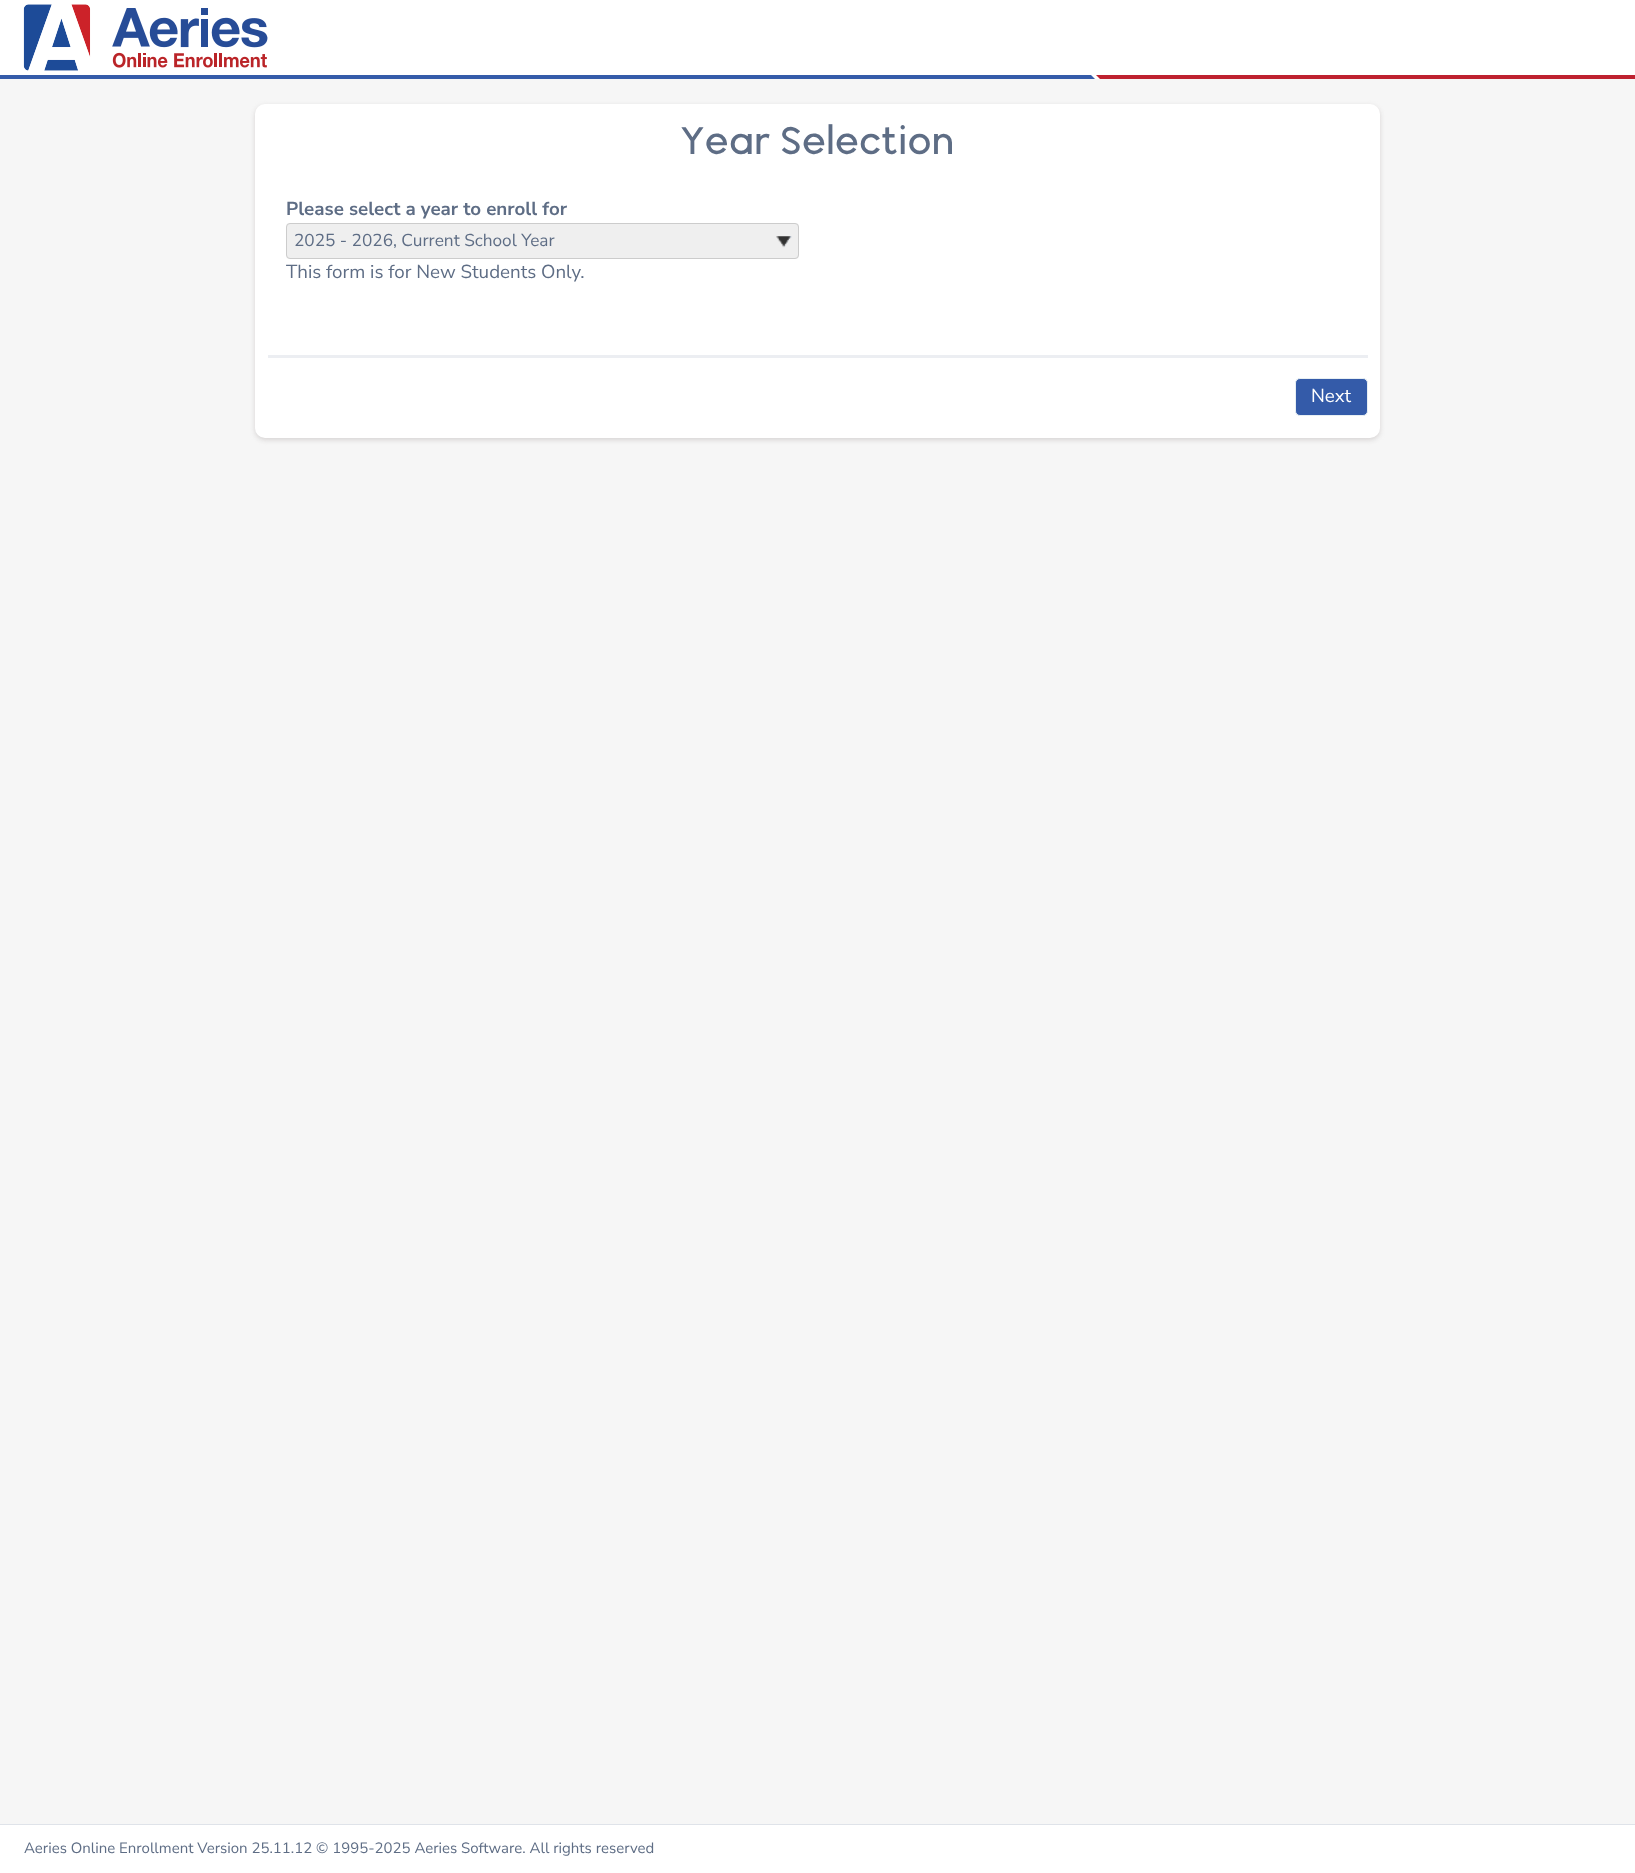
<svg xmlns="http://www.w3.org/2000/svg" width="1635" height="1873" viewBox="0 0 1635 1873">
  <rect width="100%" height="100%" fill="rgb(246,246,246)"/>
  <rect x="0" y="0" width="1635" height="75" fill="rgb(255,255,255)"/>
  <image x="23" y="4" width="245" height="67" href="pic1.png"/>
  <rect x="0" y="75" width="1091" height="4" fill="rgb(52,91,169)"/>
  <rect x="1095" y="75" width="540" height="4" fill="rgb(190,33,47)"/>
  <rect x="1091" y="75" width="9" height="4" fill="rgb(255,255,255)"/>
  <path d="M1095 79H1091V75Z" fill="rgb(52,91,169)"/>
  <path d="M1100 75V79L1096 75Z" fill="rgb(190,33,47)"/>
  <rect x="255" y="106" width="1125" height="334" rx="10" fill="rgb(214,211,211)" filter="blur(2.5px)"/>
  <rect x="255" y="104" width="1125" height="334" rx="10" fill="rgb(255,255,255)"/>
  <text x="680" y="154" font-family="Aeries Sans" font-size="40" font-weight="600" fill="rgb(94,109,133)">Year Selection</text>
  <text x="286" y="215" font-family="Nunito Sans" font-size="18.75" font-weight="bold" fill="rgb(94,109,133)">Please select a year to enroll for</text>
  <rect x="286" y="223" width="513" height="36" rx="4" fill="rgb(239,239,239)"/>
  <image x="776" y="236" width="16" height="12" href="pic2.png"/>
  <rect x="286.5" y="223.5" width="512" height="35" rx="3.5" fill="none" stroke="rgb(204,204,204)"/>
  <text x="294" y="246" font-family="Nunito Sans" font-size="17.25" fill="rgb(94,109,133)">2025 - 2026, Current School Year</text>
  <text x="286" y="278" font-family="Nunito Sans" font-size="18.75" fill="rgb(94,109,133)">This form is for New Students Only.</text>
  <rect x="268" y="355" width="1100" height="3" fill="rgb(236,238,242)"/>
  <rect x="1295.5" y="378.5" width="72" height="37" rx="4.5" fill="rgb(52,91,169)" stroke="rgb(231,239,243)"/>
  <text x="1311" y="402" font-family="Nunito Sans" font-size="18.75" fill="rgb(255,255,255)">Next</text>
  <rect x="0" y="1825" width="1635" height="48" fill="rgb(255,255,255)"/>
  <rect x="0" y="1824" width="1635" height="1" fill="rgb(223,227,233)"/>
  <text x="24" y="1853" font-family="Nunito Sans" font-size="15" fill="rgb(94,109,133)">Aeries Online Enrollment Version 25.11.12 © 1995-2025 Aeries Software. All rights reserved</text>
</svg>
